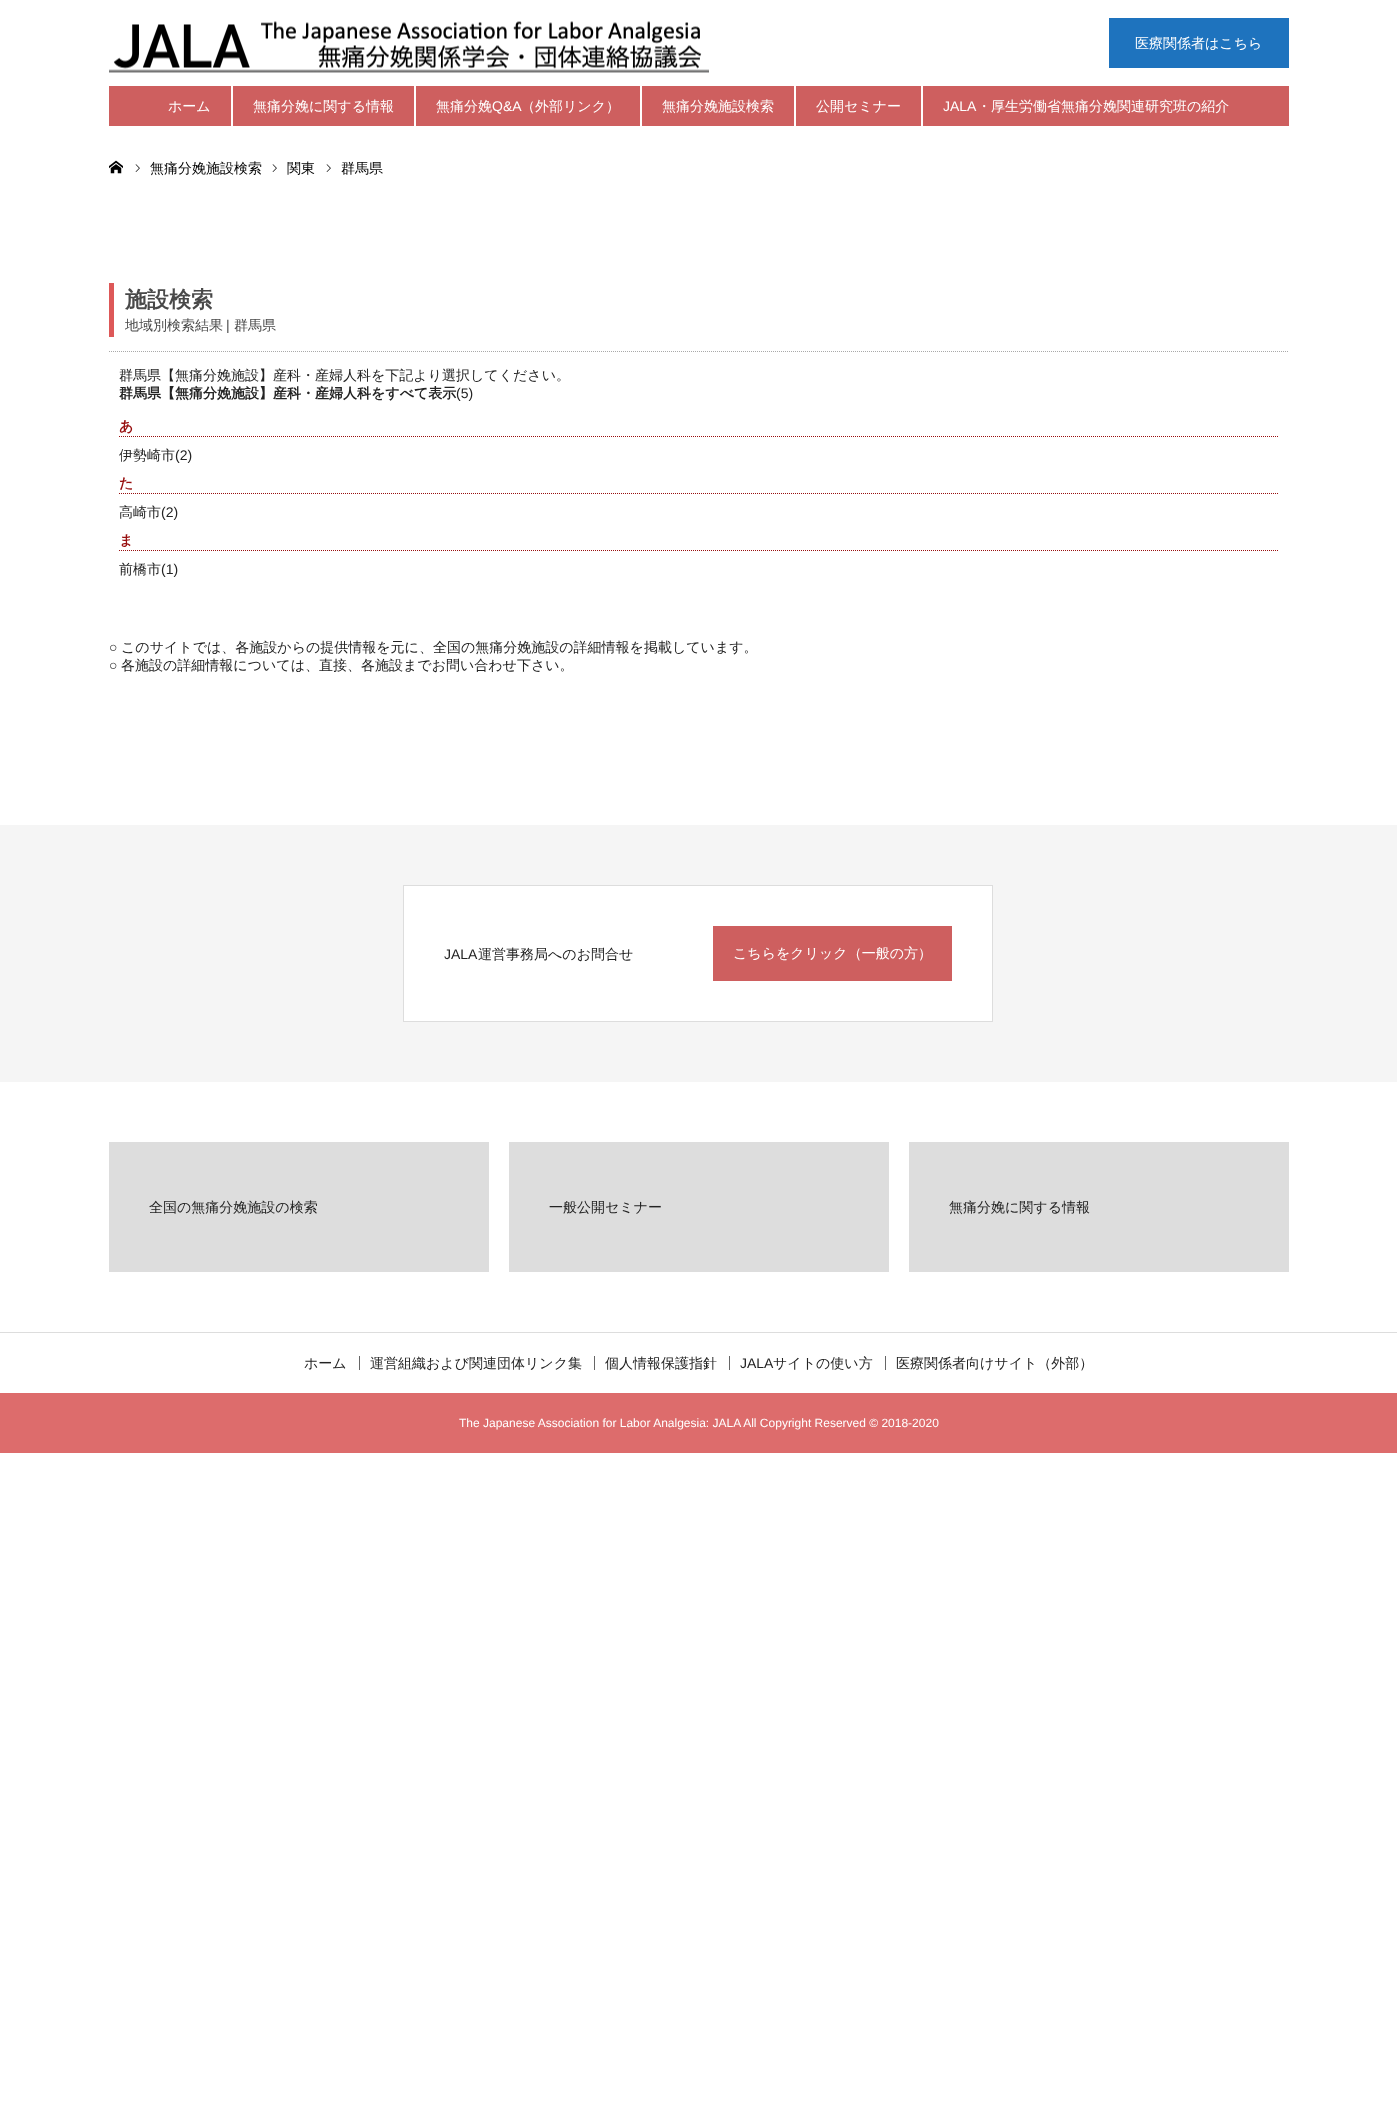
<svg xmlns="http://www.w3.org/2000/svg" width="1397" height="2102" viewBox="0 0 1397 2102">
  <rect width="100%" height="100%" fill="rgb(255,255,255)"/>
  <image x="109" y="21" width="600" height="52" href="pic1.png"/>
  <rect x="1109" y="18" width="180" height="50" fill="rgb(30,115,190)"/>
  <text x="1135" y="48" font-family="WenQuanYi Zen Hei" font-size="14" font-weight="500" fill="rgb(255,255,255)">医療関係者はこちら</text>
  <rect x="109" y="86" width="1180" height="40" fill="rgb(206,95,95)"/>
  <rect x="231" y="86" width="2" height="40" fill="rgb(255,255,255)"/>
  <text x="168" y="111" font-family="WenQuanYi Zen Hei" font-size="14" font-weight="500" fill="rgb(255,255,255)">ホーム</text>
  <rect x="414" y="86" width="2" height="40" fill="rgb(255,255,255)"/>
  <text x="253" y="111" font-family="WenQuanYi Zen Hei" font-size="14" font-weight="500" fill="rgb(255,255,255)">無痛分娩に関する情報</text>
  <rect x="640" y="86" width="2" height="40" fill="rgb(255,255,255)"/>
  <text x="436" y="111" font-family="WenQuanYi Zen Hei" font-size="14" font-weight="500" fill="rgb(255,255,255)">無痛分娩</text>
  <text x="492" y="111" font-family="Liberation Sans" font-size="14" fill="rgb(255,255,255)">Q&amp;A</text>
  <text x="521" y="111" font-family="WenQuanYi Zen Hei" font-size="14" font-weight="500" fill="rgb(255,255,255)">（外部リンク）</text>
  <rect x="794" y="86" width="2" height="40" fill="rgb(255,255,255)"/>
  <text x="662" y="111" font-family="WenQuanYi Zen Hei" font-size="14" font-weight="500" fill="rgb(255,255,255)">無痛分娩施設検索</text>
  <rect x="921" y="86" width="2" height="40" fill="rgb(255,255,255)"/>
  <text x="816" y="111" font-family="WenQuanYi Zen Hei" font-size="14" font-weight="500" fill="rgb(255,255,255)">公開セミナー</text>
  <text x="943" y="111" font-family="Liberation Sans" font-size="14" fill="rgb(255,255,255)">JALA</text>
  <text x="977" y="111" font-family="WenQuanYi Zen Hei" font-size="14" font-weight="500" fill="rgb(255,255,255)">・厚生労働省無痛分娩関連研究班の紹介</text>
  <image x="109" y="160" width="14" height="14" href="pic2.png"/>
  <image x="135" y="164" width="5" height="8" href="pic3.png"/>
  <text x="150" y="173" font-family="WenQuanYi Zen Hei" font-size="14" font-weight="500" fill="rgb(0,0,0)">無痛分娩施設検索</text>
  <image x="272" y="164" width="5" height="8" href="pic3.png"/>
  <text x="287" y="173" font-family="WenQuanYi Zen Hei" font-size="14" font-weight="500" fill="rgb(0,0,0)">関東</text>
  <image x="326" y="164" width="5" height="8" href="pic3.png"/>
  <text x="341" y="173" font-family="WenQuanYi Zen Hei" font-size="14" font-weight="500" fill="rgb(0,0,0)">群馬県</text>
  <rect x="109" y="283" width="5" height="54" fill="rgb(221,88,88)"/>
  <text x="125" y="307" font-family="WenQuanYi Zen Hei" font-size="22" font-weight="bold" fill="rgb(73,73,73)">施設検索</text>
  <text x="125" y="330" font-family="WenQuanYi Zen Hei" font-size="14" font-weight="500" fill="rgb(73,73,73)">地域別検索結果</text>
  <text x="226" y="330" font-family="Liberation Sans" font-size="14" fill="rgb(73,73,73)">|</text>
  <text x="234" y="330" font-family="WenQuanYi Zen Hei" font-size="14" font-weight="500" fill="rgb(73,73,73)">群馬県</text>
  <path d="M109 351.5H1289" fill="none" stroke="rgb(169,169,169)" stroke-dasharray="1 1"/>
  <text x="119" y="380" font-family="WenQuanYi Zen Hei" font-size="14" font-weight="500" fill="rgb(35,35,35)">群馬県【無痛分娩施設】産科・産婦人科を下記より選択してください。</text>
  <text x="119" y="398" font-family="WenQuanYi Zen Hei" font-size="14" font-weight="bold" fill="rgb(35,35,35)">群馬県【無痛分娩施設】産科・産婦人科をすべて表示</text>
  <text x="456" y="398" font-family="Liberation Sans" font-size="14" fill="rgb(35,35,35)">(5)</text>
  <path d="M119 436.5H1279" fill="none" stroke="rgb(152,15,15)" stroke-dasharray="1 1"/>
  <text x="119" y="431" font-family="WenQuanYi Zen Hei" font-size="14" font-weight="bold" fill="rgb(152,15,15)">あ</text>
  <text x="119" y="460" font-family="WenQuanYi Zen Hei" font-size="14" font-weight="500" fill="rgb(35,35,35)">伊勢崎市</text>
  <text x="175" y="460" font-family="Liberation Sans" font-size="14" fill="rgb(35,35,35)">(2)</text>
  <path d="M119 493.5H1279" fill="none" stroke="rgb(152,15,15)" stroke-dasharray="1 1"/>
  <text x="119" y="488" font-family="WenQuanYi Zen Hei" font-size="14" font-weight="bold" fill="rgb(152,15,15)">た</text>
  <text x="119" y="517" font-family="WenQuanYi Zen Hei" font-size="14" font-weight="500" fill="rgb(35,35,35)">高崎市</text>
  <text x="161" y="517" font-family="Liberation Sans" font-size="14" fill="rgb(35,35,35)">(2)</text>
  <path d="M119 550.5H1279" fill="none" stroke="rgb(152,15,15)" stroke-dasharray="1 1"/>
  <text x="119" y="545" font-family="WenQuanYi Zen Hei" font-size="14" font-weight="bold" fill="rgb(152,15,15)">ま</text>
  <text x="119" y="574" font-family="WenQuanYi Zen Hei" font-size="14" font-weight="500" fill="rgb(35,35,35)">前橋市</text>
  <g font-family="Liberation Sans" font-size="14" fill="rgb(35,35,35)">
    <text x="161" y="574">(1)</text>
    <text x="109" y="652">○</text>
  </g>
  <text x="121" y="652" font-family="WenQuanYi Zen Hei" font-size="14" font-weight="500" fill="rgb(35,35,35)">このサイトでは、各施設からの提供情報を元に、全国の無痛分娩施設の詳細情報を掲載しています。</text>
  <text x="109" y="670" font-family="Liberation Sans" font-size="14" fill="rgb(35,35,35)">○</text>
  <text x="121" y="670" font-family="WenQuanYi Zen Hei" font-size="14" font-weight="500" fill="rgb(35,35,35)">各施設の詳細情報については、直接、各施設までお問い合わせ下さい。</text>
  <rect x="0" y="825" width="1397" height="257" fill="rgb(245,245,245)"/>
  <rect x="403.5" y="885.5" width="589" height="136" fill="rgb(255,255,255)" stroke="rgb(221,221,221)"/>
  <text x="444" y="959" font-family="Liberation Sans" font-size="14" fill="rgb(35,35,35)">JALA</text>
  <text x="478" y="959" font-family="WenQuanYi Zen Hei" font-size="14" font-weight="500" fill="rgb(35,35,35)">運営事務局へのお問合せ</text>
  <rect x="713" y="926" width="239" height="55" fill="rgb(206,95,95)"/>
  <text x="733" y="958" font-family="WenQuanYi Zen Hei" font-size="14" font-weight="500" fill="rgb(255,255,255)">こちらをクリック（一般の方）</text>
  <rect x="109" y="1142" width="380" height="130" fill="rgb(221,221,221)"/>
  <text x="149" y="1212" font-family="WenQuanYi Zen Hei" font-size="14" font-weight="500" fill="rgb(35,35,35)">全国の無痛分娩施設の検索</text>
  <rect x="509" y="1142" width="380" height="130" fill="rgb(221,221,221)"/>
  <text x="549" y="1212" font-family="WenQuanYi Zen Hei" font-size="14" font-weight="500" fill="rgb(35,35,35)">一般公開セミナー</text>
  <rect x="909" y="1142" width="380" height="130" fill="rgb(221,221,221)"/>
  <text x="949" y="1212" font-family="WenQuanYi Zen Hei" font-size="14" font-weight="500" fill="rgb(35,35,35)">無痛分娩に関する情報</text>
  <rect x="0" y="1332" width="1397" height="1" fill="rgb(221,221,221)"/>
  <rect x="359" y="1356" width="1" height="14" fill="rgb(102,102,102)"/>
  <text x="304" y="1368" font-family="WenQuanYi Zen Hei" font-size="14" font-weight="500" fill="rgb(35,35,35)">ホーム</text>
  <rect x="594" y="1356" width="1" height="14" fill="rgb(102,102,102)"/>
  <text x="370" y="1368" font-family="WenQuanYi Zen Hei" font-size="14" font-weight="500" fill="rgb(35,35,35)">運営組織および関連団体リンク集</text>
  <rect x="729" y="1356" width="1" height="14" fill="rgb(102,102,102)"/>
  <text x="605" y="1368" font-family="WenQuanYi Zen Hei" font-size="14" font-weight="500" fill="rgb(35,35,35)">個人情報保護指針</text>
  <rect x="885" y="1356" width="1" height="14" fill="rgb(102,102,102)"/>
  <text x="740" y="1368" font-family="Liberation Sans" font-size="14" fill="rgb(35,35,35)">JALA</text>
  <g font-family="WenQuanYi Zen Hei" font-size="14" font-weight="500" fill="rgb(35,35,35)">
    <text x="773" y="1368">サイトの使い方</text>
    <text x="896" y="1368">医療関係者向けサイト（外部）</text>
  </g>
  <rect x="0" y="1393" width="1397" height="60" fill="rgb(221,108,108)"/>
  <text x="459" y="1427" font-family="Liberation Sans" font-size="12" fill="rgb(255,255,255)">The Japanese Association for Labor Analgesia: JALA All Copyright Reserved © 2018-2020</text>
</svg>
